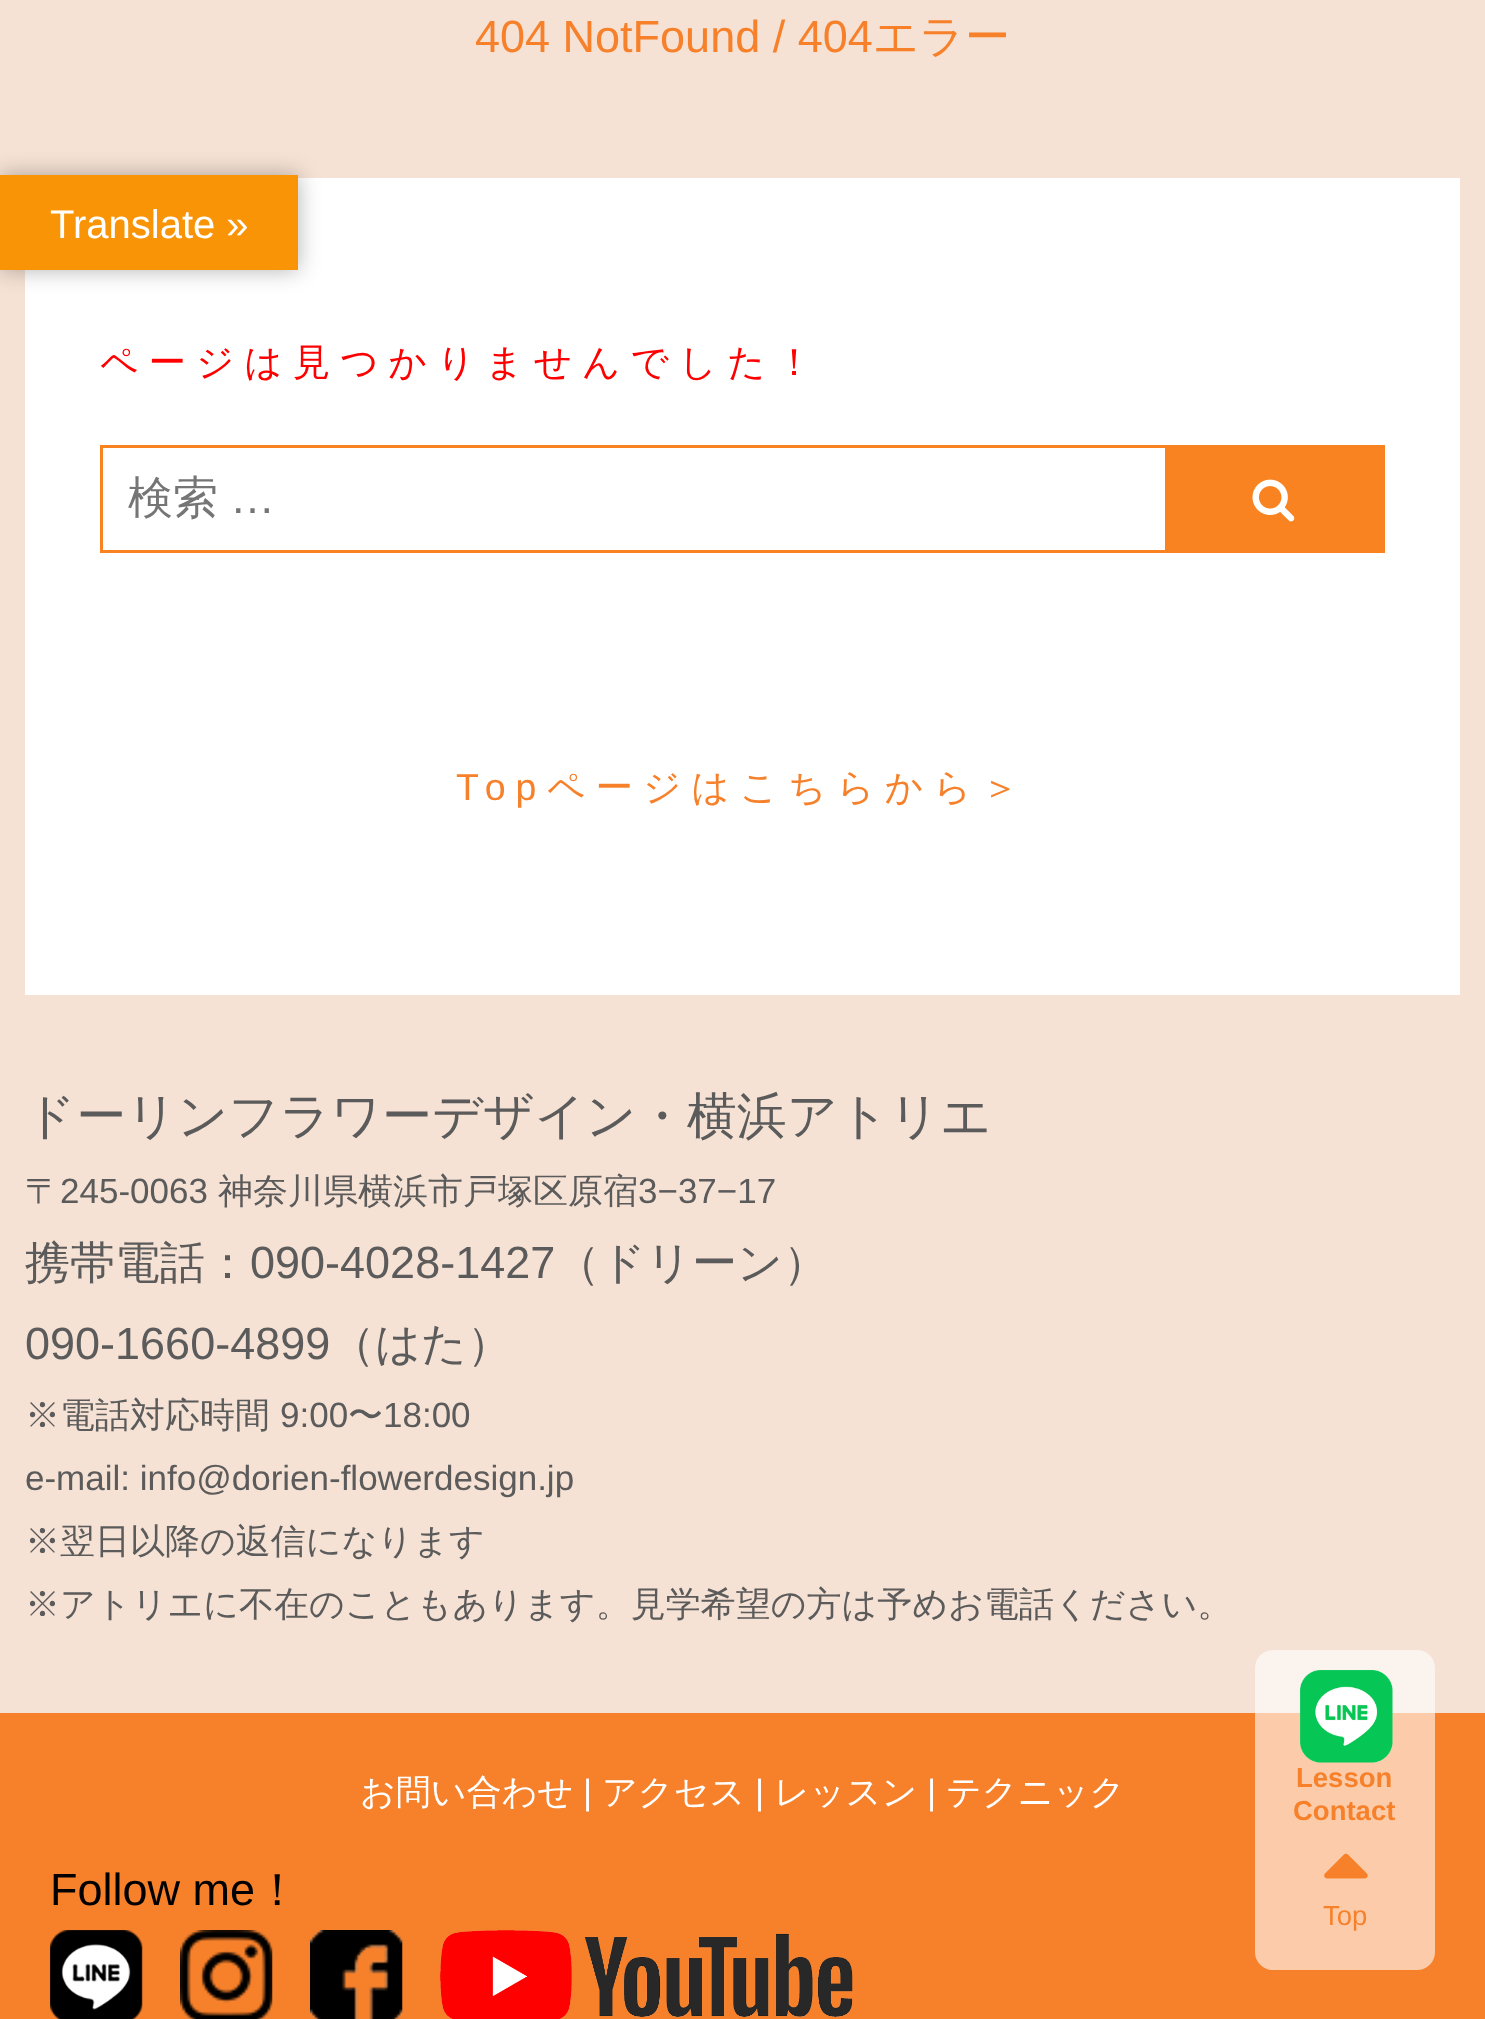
<svg xmlns="http://www.w3.org/2000/svg" width="1485" height="2019" viewBox="0 0 1485 2019">
  <rect width="100%" height="100%" fill="rgb(245,226,212)"/>
  <text x="475" y="52" font-family="Liberation Sans" font-size="45" fill="rgb(247,129,43)">404 NotFound / 404</text>
  <text x="873" y="52" font-family="WenQuanYi Zen Hei" font-size="45" font-weight="500" fill="rgb(247,129,43)">エラー</text>
  <rect x="25" y="178" width="1435" height="817" fill="rgb(255,255,255)"/>
  <text x="100" y="375" font-family="WenQuanYi Zen Hei" font-size="37.5" font-weight="500" letter-spacing="10" fill="rgb(255,0,0)">ページは見つかりませんでした！</text>
  <rect x="101.5" y="446.5" width="1282" height="105" fill="none" stroke="rgb(248,131,32)" stroke-width="3"/>
  <text x="128" y="513" font-family="WenQuanYi Zen Hei" font-size="45" font-weight="500" fill="rgb(117,117,117)">検索</text>
  <text x="230" y="513" font-family="Liberation Sans" font-size="45" fill="rgb(117,117,117)">…</text>
  <rect x="1165" y="448" width="217" height="102" fill="rgb(248,131,32)"/>
  <image x="1252" y="479" width="43" height="43" href="pic1.png"/>
  <text x="456" y="800" font-family="Liberation Sans" font-size="37.5" letter-spacing="10" fill="rgb(247,129,43)">Top</text>
  <text x="547" y="800" font-family="WenQuanYi Zen Hei" font-size="37.5" font-weight="500" letter-spacing="10" fill="rgb(247,129,43)">ページはこちらから＞</text>
  <text x="25" y="1133" font-family="WenQuanYi Zen Hei" font-size="50" font-weight="500" fill="rgb(92,91,91)">ドーリンフラワーデザイン・横浜アトリエ</text>
  <text x="25" y="1203" font-family="WenQuanYi Zen Hei" font-size="35" font-weight="500" fill="rgb(92,91,91)">〒</text>
  <text x="60" y="1203" font-family="Liberation Sans" font-size="35" fill="rgb(92,91,91)">245-0063</text>
  <text x="218" y="1203" font-family="WenQuanYi Zen Hei" font-size="35" font-weight="500" fill="rgb(92,91,91)">神奈川県横浜市戸塚区原宿</text>
  <text x="638" y="1203" font-family="Liberation Sans" font-size="35" fill="rgb(92,91,91)">3−37−17</text>
  <text x="25" y="1278" font-family="WenQuanYi Zen Hei" font-size="45" font-weight="500" fill="rgb(92,91,91)">携帯電話：</text>
  <text x="250" y="1278" font-family="Liberation Sans" font-size="45" fill="rgb(92,91,91)">090-4028-1427</text>
  <text x="555" y="1278" font-family="WenQuanYi Zen Hei" font-size="45" font-weight="500" fill="rgb(92,91,91)">（ドリーン）</text>
  <text x="25" y="1359" font-family="Liberation Sans" font-size="45" fill="rgb(92,91,91)">090-1660-4899</text>
  <text x="330" y="1359" font-family="WenQuanYi Zen Hei" font-size="45" font-weight="500" fill="rgb(92,91,91)">（はた）</text>
  <text x="25" y="1427" font-family="WenQuanYi Zen Hei" font-size="35" font-weight="500" fill="rgb(92,91,91)">※電話対応時間</text>
  <text x="280" y="1427" font-family="Liberation Sans" font-size="35" fill="rgb(92,91,91)">9:00</text>
  <text x="348" y="1427" font-family="WenQuanYi Zen Hei" font-size="35" font-weight="500" fill="rgb(92,91,91)">〜</text>
  <g font-family="Liberation Sans" font-size="35" fill="rgb(92,91,91)">
    <text x="383" y="1427">18:00</text>
    <text x="25" y="1490">e-mail: info@dorien-flowerdesign.jp</text>
  </g>
  <g font-family="WenQuanYi Zen Hei" font-size="35" font-weight="500" fill="rgb(92,91,91)">
    <text>
      <tspan x="25" y="1553">※翌日以降の返信になります</tspan>
      <tspan x="25" y="1616">※アトリエに不在のこともあります。見学希望の方は予めお電話ください。</tspan>
    </text>
  </g>
  <rect x="0" y="1713" width="1485" height="306" fill="rgb(247,129,43)"/>
  <text x="360" y="1804" font-family="WenQuanYi Zen Hei" font-size="35" font-weight="500" fill="rgb(255,255,255)">お問い合わせ</text>
  <text x="583" y="1804" font-family="Liberation Sans" font-size="35" fill="rgb(255,255,255)">|</text>
  <text x="602" y="1804" font-family="WenQuanYi Zen Hei" font-size="35" font-weight="500" fill="rgb(255,255,255)">アクセス</text>
  <text x="755" y="1804" font-family="Liberation Sans" font-size="35" fill="rgb(255,255,255)">|</text>
  <text x="774" y="1804" font-family="WenQuanYi Zen Hei" font-size="35" font-weight="500" fill="rgb(255,255,255)">レッスン</text>
  <text x="927" y="1804" font-family="Liberation Sans" font-size="35" fill="rgb(255,255,255)">|</text>
  <text x="946" y="1804" font-family="WenQuanYi Zen Hei" font-size="35" font-weight="500" fill="rgb(255,255,255)">テクニック</text>
  <text x="50" y="1905" font-family="Liberation Sans" font-size="45" fill="rgb(0,0,0)">Follow me</text>
  <text x="255" y="1905" font-family="WenQuanYi Zen Hei" font-size="45" font-weight="500" fill="rgb(0,0,0)">！</text>
  <image x="50" y="1930" width="93" height="89" href="pic2.png"/>
  <image x="180" y="1930" width="93" height="89" href="pic3.png"/>
  <image x="310" y="1930" width="93" height="89" href="pic4.png"/>
  <image x="440" y="1930" width="413" height="89" href="pic5.png"/>
  <rect x="0" y="175" width="298" height="95" fill="rgba(0,0,0,0.3)" filter="blur(11px)"/>
  <rect x="0" y="175" width="298" height="95" fill="rgb(248,148,6)"/>
  <text x="50" y="238" font-family="Liberation Sans" font-size="40" fill="rgb(255,255,255)">Translate »</text>
  <rect x="1255" y="1650" width="180" height="320" rx="18" fill="rgba(255,255,255,0.6)"/>
  <image x="1300" y="1670" width="93" height="93" href="pic6.png"/>
  <g font-family="Liberation Sans" font-size="27.5" font-weight="bold" fill="rgb(247,129,43)">
    <text x="1296" y="1787">Lesson</text>
    <text x="1293" y="1820">Contact</text>
  </g>
  <image x="1324" y="1853" width="44" height="26" href="pic7.png"/>
  <text x="1323" y="1925" font-family="Liberation Sans" font-size="27.5" fill="rgb(247,129,43)">Top</text>
</svg>
